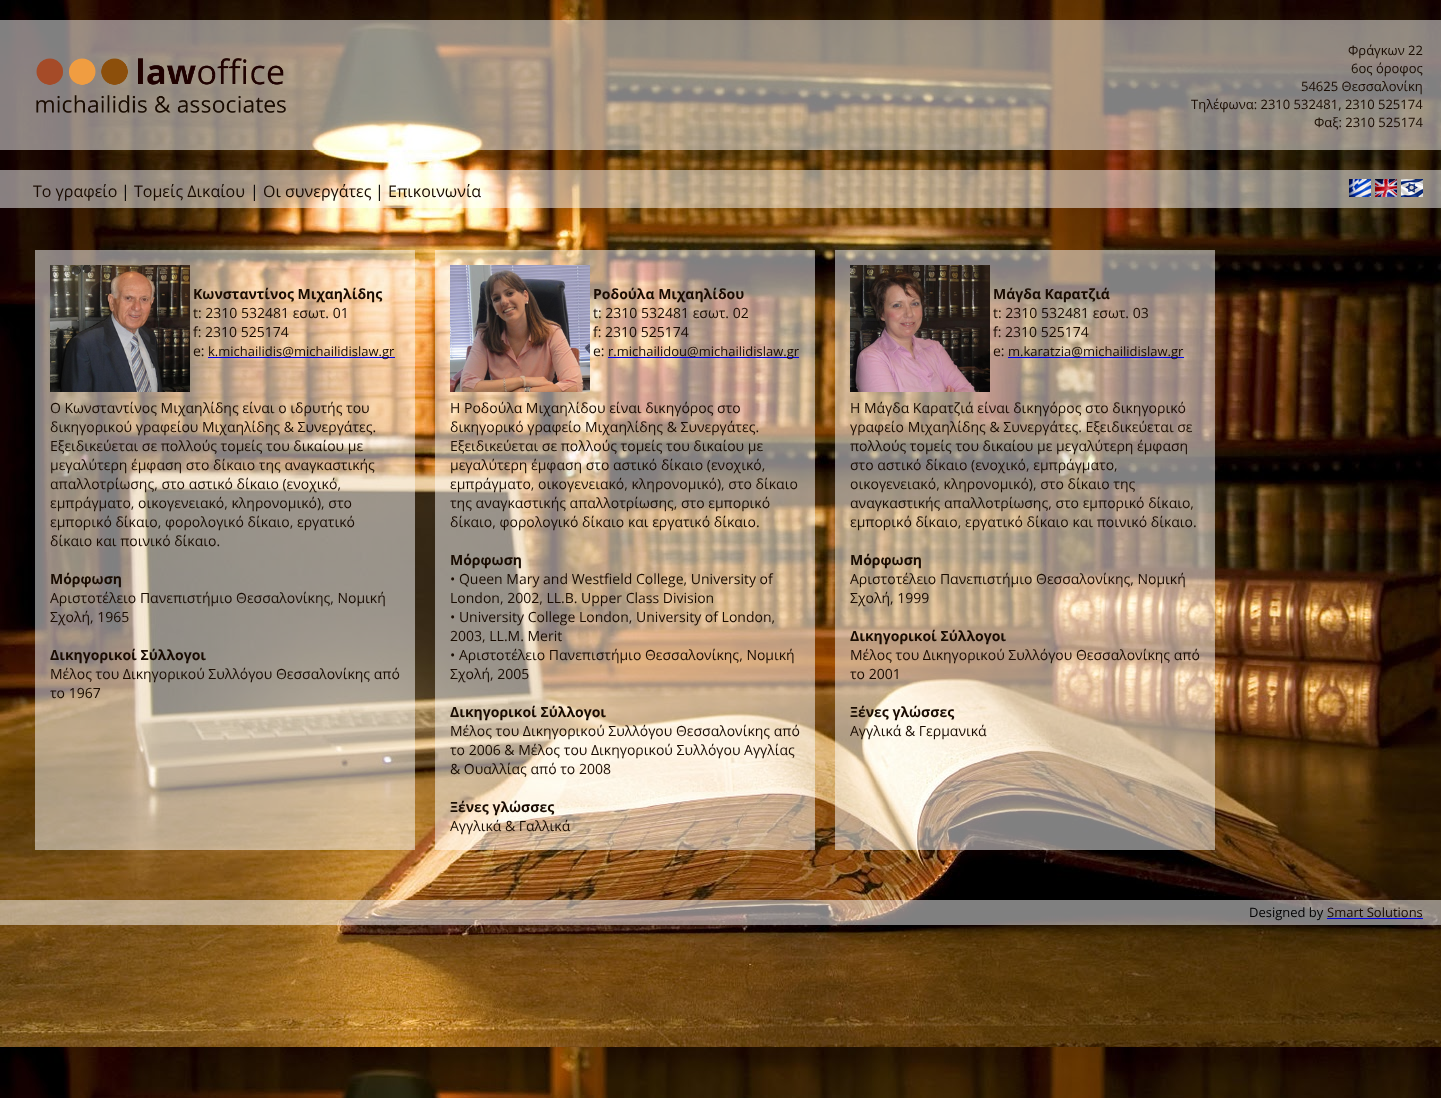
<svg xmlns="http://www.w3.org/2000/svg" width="1441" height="1098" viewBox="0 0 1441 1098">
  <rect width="100%" height="100%" fill="rgb(255,255,255)"/>
  <image x="0" y="0" width="1441" height="1098" href="pic1.png"/>
  <rect x="0" y="20" width="1441" height="130" fill="rgba(255,255,255,0.5)"/>
  <image x="36" y="58" width="250" height="55" href="pic2.png"/>
  <g font-family="Open Sans" font-size="13" fill="rgb(25,11,0)">
    <text x="1348" y="55">Φράγκων 22</text>
    <text x="1351" y="73">6ος όροφος</text>
    <text x="1301" y="91">54625 Θεσσαλονίκη</text>
    <text x="1191" y="109">Τηλέφωνα: 2310 532481, 2310 525174</text>
    <text x="1314" y="127">Φαξ: 2310 525174</text>
  </g>
  <rect x="0" y="170" width="1441" height="38" fill="rgba(255,255,255,0.5)"/>
  <text x="33" y="197" font-family="Open Sans" font-size="16" fill="rgb(25,11,0)">Το γραφείο</text>
  <text x="121" y="197" font-family="Open Sans" font-size="16" fill="rgb(0,0,0)">|</text>
  <text x="134" y="197" font-family="Open Sans" font-size="16" fill="rgb(25,11,0)">Τομείς Δικαίου</text>
  <text x="250" y="197" font-family="Open Sans" font-size="16" fill="rgb(0,0,0)">|</text>
  <text x="263" y="197" font-family="Open Sans" font-size="16" fill="rgb(25,11,0)">Οι συνεργάτες</text>
  <text x="375" y="197" font-family="Open Sans" font-size="16" fill="rgb(0,0,0)">|</text>
  <text x="388" y="197" font-family="Open Sans" font-size="16" fill="rgb(25,11,0)">Επικοινωνία</text>
  <image x="1349" y="179" width="22" height="18" href="pic3.png"/>
  <image x="1375" y="179" width="22" height="18" href="pic4.png"/>
  <image x="1401" y="179" width="22" height="18" href="pic5.png"/>
  <rect x="35" y="250" width="380" height="600" fill="rgba(255,255,255,0.5)"/>
  <image x="50" y="265" width="140" height="127" href="pic6.png"/>
  <text x="193" y="299" font-family="Open Sans" font-size="14" font-weight="bold" fill="rgb(25,11,0)">Κωνσταντίνος Μιχαηλίδης</text>
  <g font-family="Open Sans" font-size="14" fill="rgb(25,11,0)">
    <text>
      <tspan x="193" y="318">t: 2310 532481 εσωτ. 01</tspan>
      <tspan x="193" y="337">f: 2310 525174</tspan>
      <tspan x="193" y="356">e:</tspan>
    </text>
  </g>
  <rect x="208" y="357" width="187" height="1" fill="rgb(0,0,238)"/>
  <text x="208" y="356" font-family="Open Sans" font-size="13" fill="rgb(25,11,0)">k.michailidis@michailidislaw.gr</text>
  <g font-family="Open Sans" font-size="14" fill="rgb(25,11,0)">
    <text>
      <tspan x="50" y="413">Ο Κωνσταντίνος Μιχαηλίδης είναι ο ιδρυτής του</tspan>
      <tspan x="50" y="432">δικηγορικού γραφείου Μιχαηλίδης &amp; Συνεργάτες.</tspan>
      <tspan x="50" y="451">Εξειδικεύεται σε πολλούς τομείς του δικαίου με</tspan>
      <tspan x="50" y="470">μεγαλύτερη έμφαση στο δίκαιο της αναγκαστικής</tspan>
      <tspan x="50" y="489">απαλλοτρίωσης, στο αστικό δίκαιο (ενοχικό,</tspan>
      <tspan x="50" y="508">εμπράγματο, οικογενειακό, κληρονομικό), στο</tspan>
      <tspan x="50" y="527">εμπορικό δίκαιο, φορολογικό δίκαιο, εργατικό</tspan>
      <tspan x="50" y="546">δίκαιο και ποινικό δίκαιο.</tspan>
    </text>
  </g>
  <text x="50" y="584" font-family="Open Sans" font-size="14" font-weight="bold" fill="rgb(25,11,0)">Μόρφωση</text>
  <g font-family="Open Sans" font-size="14" fill="rgb(25,11,0)">
    <text>
      <tspan x="50" y="603">Αριστοτέλειο Πανεπιστήμιο Θεσσαλονίκης, Νομική</tspan>
      <tspan x="50" y="622">Σχολή, 1965</tspan>
    </text>
  </g>
  <text x="50" y="660" font-family="Open Sans" font-size="14" font-weight="bold" fill="rgb(25,11,0)">Δικηγορικοί Σύλλογοι</text>
  <g font-family="Open Sans" font-size="14" fill="rgb(25,11,0)">
    <text>
      <tspan x="50" y="679">Μέλος του Δικηγορικού Συλλόγου Θεσσαλονίκης από</tspan>
      <tspan x="50" y="698">το 1967</tspan>
    </text>
  </g>
  <rect x="435" y="250" width="380" height="600" fill="rgba(255,255,255,0.5)"/>
  <image x="450" y="265" width="140" height="127" href="pic7.png"/>
  <text x="593" y="299" font-family="Open Sans" font-size="14" font-weight="bold" fill="rgb(25,11,0)">Ροδούλα Μιχαηλίδου</text>
  <g font-family="Open Sans" font-size="14" fill="rgb(25,11,0)">
    <text>
      <tspan x="593" y="318">t: 2310 532481 εσωτ. 02</tspan>
      <tspan x="593" y="337">f: 2310 525174</tspan>
      <tspan x="593" y="356">e:</tspan>
    </text>
  </g>
  <rect x="608" y="357" width="191" height="1" fill="rgb(0,0,238)"/>
  <text x="608" y="356" font-family="Open Sans" font-size="13" fill="rgb(25,11,0)">r.michailidou@michailidislaw.gr</text>
  <g font-family="Open Sans" font-size="14" fill="rgb(25,11,0)">
    <text>
      <tspan x="450" y="413">Η Ροδούλα Μιχαηλίδου είναι δικηγόρος στο</tspan>
      <tspan x="450" y="432">δικηγορικό γραφείο Μιχαηλίδης &amp; Συνεργάτες.</tspan>
      <tspan x="450" y="451">Εξειδικεύεται σε πολλούς τομείς του δικαίου με</tspan>
      <tspan x="450" y="470">μεγαλύτερη έμφαση στο αστικό δίκαιο (ενοχικό,</tspan>
      <tspan x="450" y="489">εμπράγματο, οικογενειακό, κληρονομικό), στο δίκαιο</tspan>
      <tspan x="450" y="508">της αναγκαστικής απαλλοτρίωσης, στο εμπορικό</tspan>
      <tspan x="450" y="527">δίκαιο, φορολογικό δίκαιο και εργατικό δίκαιο.</tspan>
    </text>
  </g>
  <text x="450" y="565" font-family="Open Sans" font-size="14" font-weight="bold" fill="rgb(25,11,0)">Μόρφωση</text>
  <g font-family="Open Sans" font-size="14" fill="rgb(25,11,0)">
    <text>
      <tspan x="450" y="584">• Queen Mary and Westfield College, University of</tspan>
      <tspan x="450" y="603">London, 2002, LL.B. Upper Class Division</tspan>
      <tspan x="450" y="622">• University College London, University of London,</tspan>
      <tspan x="450" y="641">2003, LL.M. Merit</tspan>
      <tspan x="450" y="660">• Αριστοτέλειο Πανεπιστήμιο Θεσσαλονίκης, Νομική</tspan>
      <tspan x="450" y="679">Σχολή, 2005</tspan>
    </text>
  </g>
  <text x="450" y="717" font-family="Open Sans" font-size="14" font-weight="bold" fill="rgb(25,11,0)">Δικηγορικοί Σύλλογοι</text>
  <g font-family="Open Sans" font-size="14" fill="rgb(25,11,0)">
    <text>
      <tspan x="450" y="736">Μέλος του Δικηγορικού Συλλόγου Θεσσαλονίκης από</tspan>
      <tspan x="450" y="755">το 2006 &amp; Μέλος του Δικηγορικού Συλλόγου Αγγλίας</tspan>
      <tspan x="450" y="774">&amp; Ουαλλίας από το 2008</tspan>
    </text>
  </g>
  <text x="450" y="812" font-family="Open Sans" font-size="14" font-weight="bold" fill="rgb(25,11,0)">Ξένες γλώσσες</text>
  <text x="450" y="831" font-family="Open Sans" font-size="14" fill="rgb(25,11,0)">Αγγλικά &amp; Γαλλικά</text>
  <rect x="835" y="250" width="380" height="600" fill="rgba(255,255,255,0.5)"/>
  <image x="850" y="265" width="140" height="127" href="pic8.png"/>
  <text x="993" y="299" font-family="Open Sans" font-size="14" font-weight="bold" fill="rgb(25,11,0)">Μάγδα Καρατζιά</text>
  <g font-family="Open Sans" font-size="14" fill="rgb(25,11,0)">
    <text>
      <tspan x="993" y="318">t: 2310 532481 εσωτ. 03</tspan>
      <tspan x="993" y="337">f: 2310 525174</tspan>
      <tspan x="993" y="356">e:</tspan>
    </text>
  </g>
  <rect x="1008" y="357" width="176" height="1" fill="rgb(0,0,238)"/>
  <text x="1008" y="356" font-family="Open Sans" font-size="13" fill="rgb(25,11,0)">m.karatzia@michailidislaw.gr</text>
  <g font-family="Open Sans" font-size="14" fill="rgb(25,11,0)">
    <text>
      <tspan x="850" y="413">Η Μάγδα Καρατζιά είναι δικηγόρος στο δικηγορικό</tspan>
      <tspan x="850" y="432">γραφείο Μιχαηλίδης &amp; Συνεργάτες. Εξειδικεύεται σε</tspan>
      <tspan x="850" y="451">πολλούς τομείς του δικαίου με μεγαλύτερη έμφαση</tspan>
      <tspan x="850" y="470">στο αστικό δίκαιο (ενοχικό, εμπράγματο,</tspan>
      <tspan x="850" y="489">οικογενειακό, κληρονομικό), στο δίκαιο της</tspan>
      <tspan x="850" y="508">αναγκαστικής απαλλοτρίωσης, στο εμπορικό δίκαιο,</tspan>
      <tspan x="850" y="527">εμπορικό δίκαιο, εργατικό δίκαιο και ποινικό δίκαιο.</tspan>
    </text>
  </g>
  <text x="850" y="565" font-family="Open Sans" font-size="14" font-weight="bold" fill="rgb(25,11,0)">Μόρφωση</text>
  <g font-family="Open Sans" font-size="14" fill="rgb(25,11,0)">
    <text>
      <tspan x="850" y="584">Αριστοτέλειο Πανεπιστήμιο Θεσσαλονίκης, Νομική</tspan>
      <tspan x="850" y="603">Σχολή, 1999</tspan>
    </text>
  </g>
  <text x="850" y="641" font-family="Open Sans" font-size="14" font-weight="bold" fill="rgb(25,11,0)">Δικηγορικοί Σύλλογοι</text>
  <g font-family="Open Sans" font-size="14" fill="rgb(25,11,0)">
    <text>
      <tspan x="850" y="660">Μέλος του Δικηγορικού Συλλόγου Θεσσαλονίκης από</tspan>
      <tspan x="850" y="679">το 2001</tspan>
    </text>
  </g>
  <text x="850" y="717" font-family="Open Sans" font-size="14" font-weight="bold" fill="rgb(25,11,0)">Ξένες γλώσσες</text>
  <text x="850" y="736" font-family="Open Sans" font-size="14" fill="rgb(25,11,0)">Αγγλικά &amp; Γερμανικά</text>
  <rect x="0" y="900" width="1441" height="25" fill="rgba(255,255,255,0.5)"/>
  <text x="1249" y="917" font-family="Open Sans" font-size="13" fill="rgb(0,0,0)">Designed by</text>
  <rect x="1327" y="918" width="96" height="1" fill="rgb(0,0,238)"/>
  <text x="1327" y="917" font-family="Open Sans" font-size="13" fill="rgb(25,11,0)">Smart Solutions</text>
</svg>
